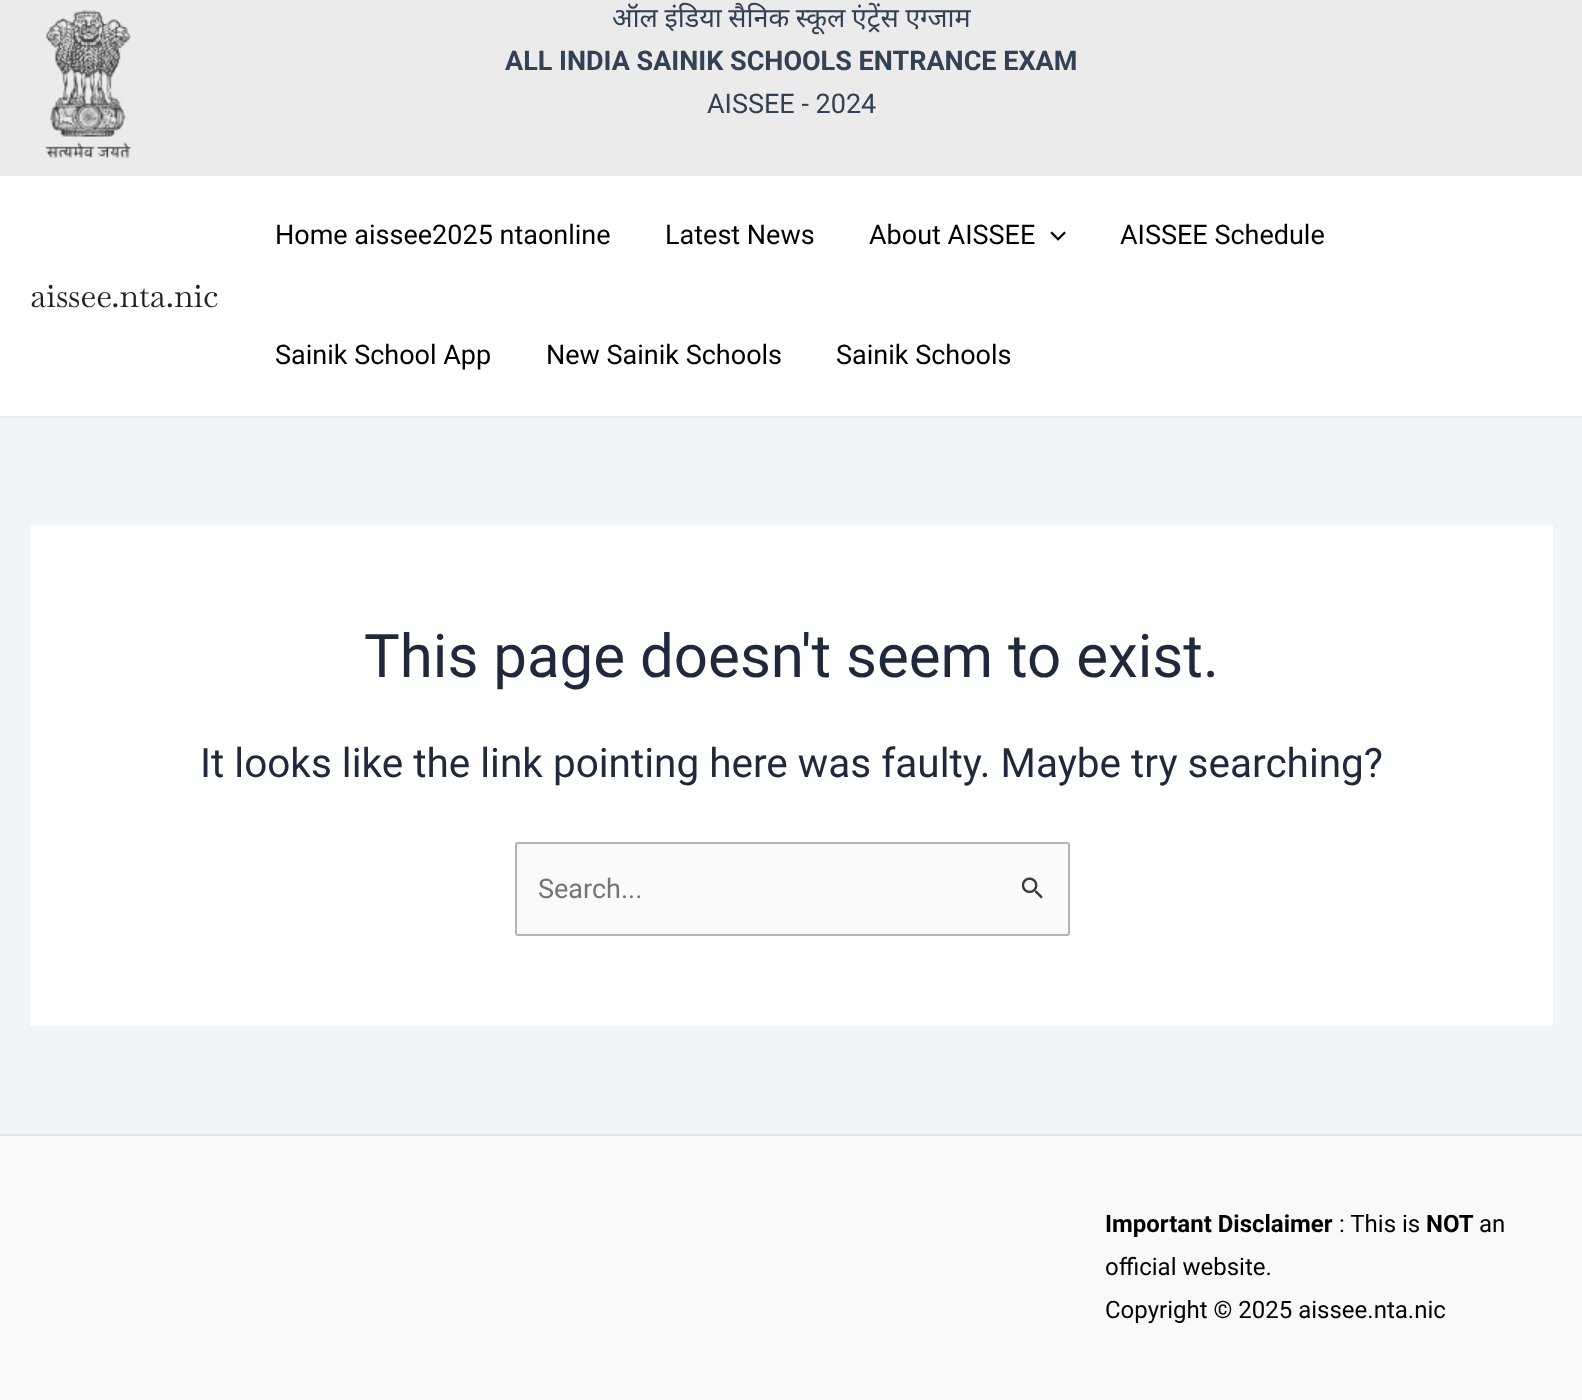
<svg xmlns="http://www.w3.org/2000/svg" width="1582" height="1400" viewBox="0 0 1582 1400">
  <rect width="100%" height="100%" fill="rgb(240,245,250)"/>
  <rect x="0" y="0" width="1582" height="176" fill="rgb(235,235,235)"/>
  <image x="45" y="10" width="86" height="148" href="pic1.png"/>
  <text x="612" y="27" word-spacing="-0.5" font-family="Noto Sans" font-size="27" fill="rgb(51,65,85)">ऑल इंडिया सैनिक स्कूल एंट्रेंस एग्जाम</text>
  <text x="505" y="70" font-family="Roboto" font-size="27" font-weight="bold" fill="rgb(51,65,85)">ALL INDIA SAINIK SCHOOLS ENTRANCE EXAM</text>
  <text x="707" y="113" font-family="Roboto" font-size="27" fill="rgb(51,65,85)">AISSEE - 2024</text>
  <rect x="0" y="176" width="1582" height="240" fill="rgb(255,255,255)"/>
  <rect x="0" y="416" width="1582" height="2" fill="rgb(234,234,234)"/>
  <text x="30" y="307" font-family="Baskervville" font-size="33" fill="rgb(34,34,34)">aissee.nta.nic</text>
  <g font-family="Roboto" font-size="27" fill="rgb(0,0,0)">
    <text x="275" y="244">Home aissee2025 ntaonline</text>
    <text x="665" y="244">Latest News</text>
    <text x="869" y="244">About AISSEE</text>
  </g>
  <image x="1050" y="231" width="16" height="10" href="pic2.png"/>
  <g font-family="Roboto" font-size="27" fill="rgb(0,0,0)">
    <text x="1120" y="244">AISSEE Schedule</text>
    <text x="275" y="364">Sainik School App</text>
    <text x="546" y="364">New Sainik Schools</text>
    <text x="836" y="364">Sainik Schools</text>
  </g>
  <rect x="30" y="525" width="1523" height="501" fill="rgb(255,255,255)"/>
  <text x="364" y="677" font-family="Roboto" font-size="60" fill="rgb(30,41,59)">This page doesn't seem to exist.</text>
  <text x="200" y="777" font-family="Roboto" font-size="40.5" fill="rgb(30,41,59)">It looks like the link pointing here was faulty. Maybe try searching?</text>
  <rect x="516" y="843" width="553" height="92" rx="2" fill="rgb(250,250,250)" stroke="rgb(173,182,190)" stroke-width="2"/>
  <text x="538" y="898" font-family="Roboto" font-size="27" fill="rgb(117,117,117)">Search...</text>
  <image x="1022" y="877" width="21" height="22" href="pic3.png"/>
  <rect x="0" y="1136" width="1582" height="264" fill="rgb(249,249,249)"/>
  <rect x="0" y="1134" width="1582" height="2" fill="rgb(230,230,230)"/>
  <text x="1105" y="1232" font-family="Roboto" font-size="24" font-weight="bold" fill="rgb(0,0,0)">Important Disclaimer</text>
  <text x="1339" y="1232" font-family="Roboto" font-size="24" fill="rgb(0,0,0)">: This is</text>
  <text x="1426" y="1232" font-family="Roboto" font-size="24" font-weight="bold" fill="rgb(0,0,0)">NOT</text>
  <g font-family="Roboto" font-size="24" fill="rgb(0,0,0)">
    <text x="1479" y="1232">an</text>
    <text>
      <tspan x="1105" y="1275">official website.</tspan>
      <tspan x="1105" y="1318">Copyright © 2025 aissee.nta.nic</tspan>
    </text>
  </g>
</svg>
